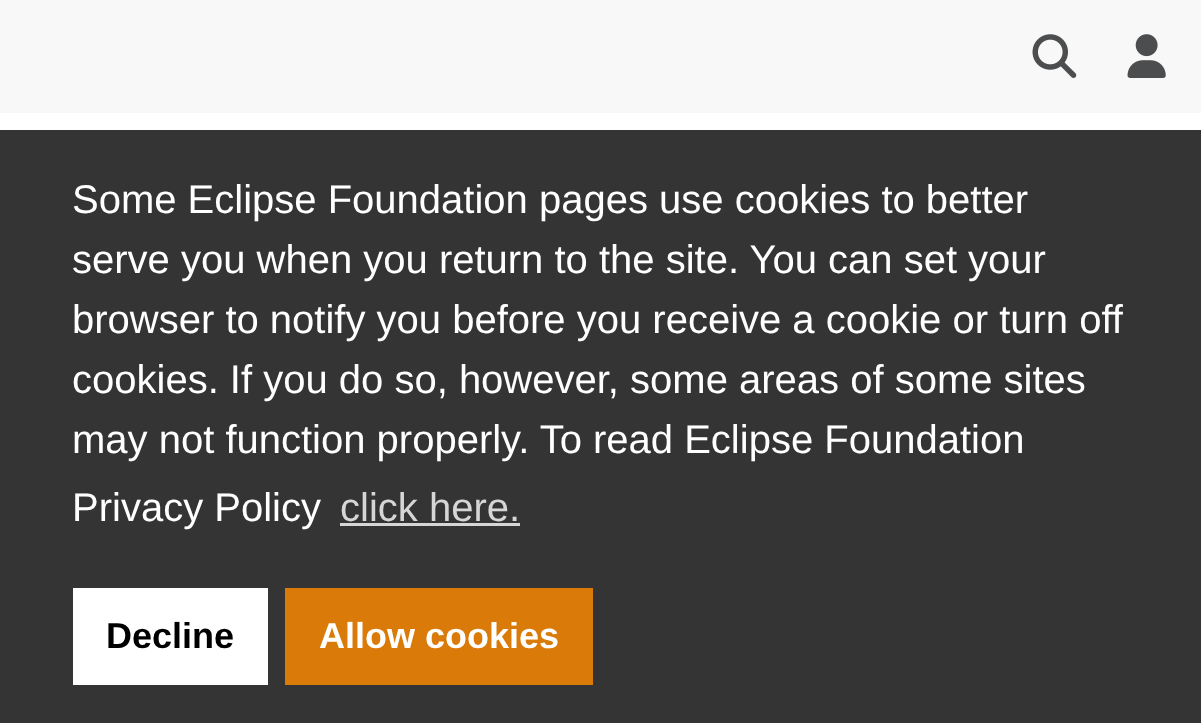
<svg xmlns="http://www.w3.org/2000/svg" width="1201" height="723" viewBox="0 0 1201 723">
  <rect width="100%" height="100%" fill="rgb(255,255,255)"/>
  <rect x="0" y="0" width="1201" height="113" fill="rgb(248,248,248)"/>
  <image x="1032" y="34" width="45" height="44" href="pic1.png"/>
  <image x="1127" y="34" width="39" height="44" href="pic2.png"/>
  <rect x="0" y="130" width="1201" height="593" fill="rgb(53,52,52)"/>
  <g font-family="Liberation Sans" font-size="40" fill="rgb(255,255,255)">
    <text>
      <tspan x="72" y="213">Some Eclipse Foundation pages use cookies to better</tspan>
      <tspan x="72" y="273">serve you when you return to the site. You can set your</tspan>
      <tspan x="72" y="333">browser to notify you before you receive a cookie or turn off</tspan>
      <tspan x="72" y="393">cookies. If you do so, however, some areas of some sites</tspan>
      <tspan x="72" y="453">may not function properly. To read Eclipse Foundation</tspan>
      <tspan x="72" y="521">Privacy Policy</tspan>
    </text>
  </g>
  <text x="340" y="521" font-family="Liberation Sans" font-size="40" fill="rgb(215,214,214)">click here.</text>
  <rect x="340" y="523" width="180" height="3" fill="rgb(215,214,214)"/>
  <rect x="73" y="588" width="195" height="97" fill="rgb(255,255,255)"/>
  <text x="106" y="648" font-family="Liberation Sans" font-size="36" font-weight="bold" fill="rgb(0,0,0)">Decline</text>
  <rect x="285" y="588" width="308" height="97" fill="rgb(218,122,8)"/>
  <text x="319" y="648" font-family="Liberation Sans" font-size="36" font-weight="bold" fill="rgb(255,255,255)">Allow cookies</text>
</svg>
